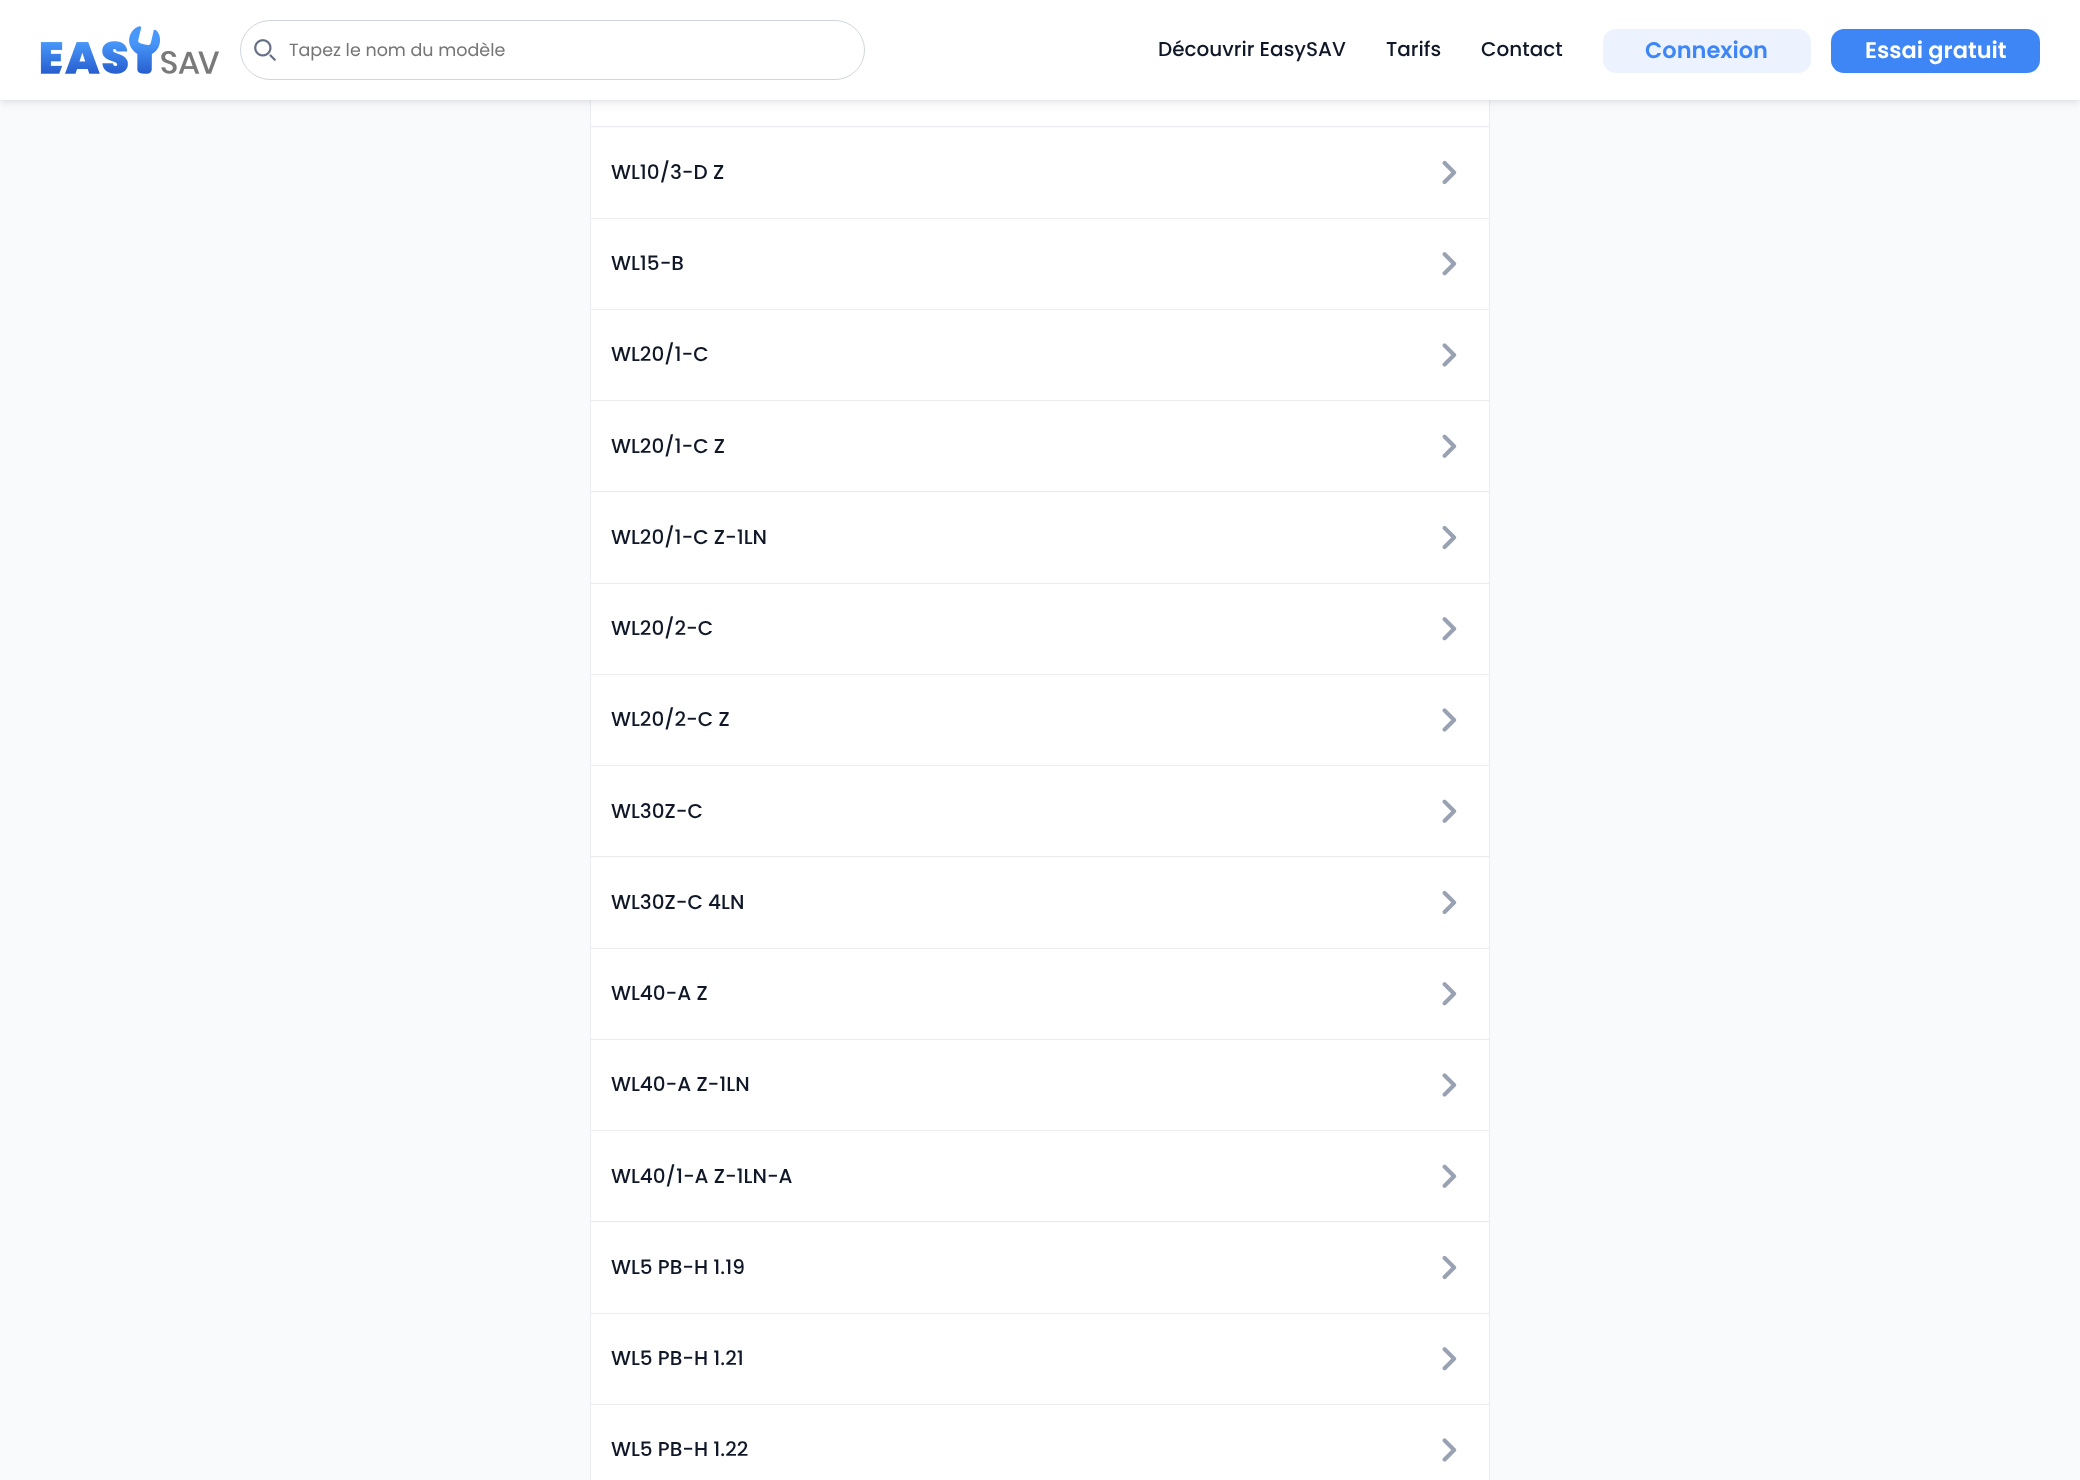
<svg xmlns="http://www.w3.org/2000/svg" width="2080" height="1480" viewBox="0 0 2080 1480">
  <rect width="100%" height="100%" fill="rgb(249,250,251)"/>
  <rect x="591" y="100" width="898" height="26" fill="rgb(255,255,255)"/>
  <rect x="1489" y="100" width="1" height="1380" fill="rgb(234,236,240)"/>
  <rect x="590" y="126" width="900" height="1" fill="rgb(234,236,240)"/>
  <rect x="590" y="100" width="1" height="28" fill="rgb(234,236,240)"/>
  <rect x="1" y="4" width="2078" height="97" fill="rgba(0,0,0,0.06)" filter="blur(2.5px)"/>
  <rect x="1" y="6" width="2078" height="98" fill="rgba(102,112,133,0.1)" filter="blur(4px)"/>
  <rect x="0" y="0" width="2080" height="100" fill="rgb(255,255,255)"/>
  <image x="40" y="26" width="179" height="48" href="pic1.png"/>
  <rect x="240.5" y="20.5" width="624" height="59" rx="29.5" fill="none" stroke="rgb(208,213,221)"/>
  <image x="254" y="39" width="22" height="22" href="pic2.png"/>
  <text x="289" y="56" font-family="Poppins" font-size="17.5" fill="rgb(117,117,117)">Tapez le nom du modèle</text>
  <g font-family="Poppins" font-size="20" font-weight="500" fill="rgb(16,24,40)">
    <text x="1158" y="56">Découvrir EasySAV</text>
    <text x="1386" y="56">Tarifs</text>
    <text x="1481" y="56">Contact</text>
  </g>
  <rect x="1603" y="29" width="208" height="44" rx="13" fill="rgb(236,243,254)"/>
  <text x="1645" y="58" font-family="Poppins" font-size="22.5" font-weight="600" fill="rgb(62,134,245)">Connexion</text>
  <rect x="1831" y="29" width="209" height="44" rx="13" fill="rgb(62,134,245)"/>
  <text x="1865" y="58" font-family="Poppins" font-size="22.5" font-weight="600" fill="rgb(255,255,255)">Essai gratuit</text>
  <rect x="591" y="128" width="898" height="90" fill="rgb(255,255,255)"/>
  <rect x="590" y="218" width="900" height="1" fill="rgb(234,236,240)"/>
  <rect x="590" y="128" width="1" height="91" fill="rgb(234,236,240)"/>
  <text x="611" y="179" font-family="Poppins" font-size="20" font-weight="500" fill="rgb(16,24,40)">WL10/3-D Z</text>
  <image x="1442" y="160" width="15" height="25" href="pic3.png"/>
  <rect x="591" y="219" width="898" height="90" fill="rgb(255,255,255)"/>
  <rect x="590" y="309" width="900" height="1" fill="rgb(234,236,240)"/>
  <rect x="590" y="219" width="1" height="91" fill="rgb(234,236,240)"/>
  <text x="611" y="270" font-family="Poppins" font-size="20" font-weight="500" fill="rgb(16,24,40)">WL15-B</text>
  <image x="1442" y="252" width="15" height="24" href="pic4.png"/>
  <rect x="591" y="310" width="898" height="90" fill="rgb(255,255,255)"/>
  <rect x="590" y="400" width="900" height="1" fill="rgb(234,236,240)"/>
  <rect x="590" y="310" width="1" height="91" fill="rgb(234,236,240)"/>
  <text x="611" y="361" font-family="Poppins" font-size="20" font-weight="500" fill="rgb(16,24,40)">WL20/1-C</text>
  <image x="1442" y="343" width="15" height="24" href="pic5.png"/>
  <rect x="591" y="401" width="898" height="90" fill="rgb(255,255,255)"/>
  <rect x="590" y="491" width="900" height="1" fill="rgb(234,236,240)"/>
  <rect x="590" y="401" width="1" height="92" fill="rgb(234,236,240)"/>
  <text x="611" y="453" font-family="Poppins" font-size="20" font-weight="500" fill="rgb(16,24,40)">WL20/1-C Z</text>
  <image x="1442" y="434" width="15" height="24" href="pic6.png"/>
  <rect x="591" y="493" width="898" height="90" fill="rgb(255,255,255)"/>
  <rect x="590" y="583" width="900" height="1" fill="rgb(234,236,240)"/>
  <rect x="590" y="493" width="1" height="91" fill="rgb(234,236,240)"/>
  <text x="611" y="544" font-family="Poppins" font-size="20" font-weight="500" fill="rgb(16,24,40)">WL20/1-C Z-1LN</text>
  <image x="1442" y="525" width="15" height="25" href="pic3.png"/>
  <rect x="591" y="584" width="898" height="90" fill="rgb(255,255,255)"/>
  <rect x="590" y="674" width="900" height="1" fill="rgb(234,236,240)"/>
  <rect x="590" y="584" width="1" height="91" fill="rgb(234,236,240)"/>
  <text x="611" y="635" font-family="Poppins" font-size="20" font-weight="500" fill="rgb(16,24,40)">WL20/2-C</text>
  <image x="1442" y="617" width="15" height="24" href="pic4.png"/>
  <rect x="591" y="675" width="898" height="90" fill="rgb(255,255,255)"/>
  <rect x="590" y="765" width="900" height="1" fill="rgb(234,236,240)"/>
  <rect x="590" y="675" width="1" height="91" fill="rgb(234,236,240)"/>
  <text x="611" y="726" font-family="Poppins" font-size="20" font-weight="500" fill="rgb(16,24,40)">WL20/2-C Z</text>
  <image x="1442" y="708" width="15" height="24" href="pic5.png"/>
  <rect x="591" y="766" width="898" height="90" fill="rgb(255,255,255)"/>
  <rect x="590" y="856" width="900" height="1" fill="rgb(234,236,240)"/>
  <rect x="590" y="766" width="1" height="92" fill="rgb(234,236,240)"/>
  <text x="611" y="818" font-family="Poppins" font-size="20" font-weight="500" fill="rgb(16,24,40)">WL30Z-C</text>
  <image x="1442" y="799" width="15" height="24" href="pic6.png"/>
  <rect x="591" y="858" width="898" height="90" fill="rgb(255,255,255)"/>
  <rect x="590" y="948" width="900" height="1" fill="rgb(234,236,240)"/>
  <rect x="590" y="858" width="1" height="91" fill="rgb(234,236,240)"/>
  <text x="611" y="909" font-family="Poppins" font-size="20" font-weight="500" fill="rgb(16,24,40)">WL30Z-C 4LN</text>
  <image x="1442" y="890" width="15" height="25" href="pic3.png"/>
  <rect x="591" y="949" width="898" height="90" fill="rgb(255,255,255)"/>
  <rect x="590" y="1039" width="900" height="1" fill="rgb(234,236,240)"/>
  <rect x="590" y="949" width="1" height="91" fill="rgb(234,236,240)"/>
  <text x="611" y="1000" font-family="Poppins" font-size="20" font-weight="500" fill="rgb(16,24,40)">WL40-A Z</text>
  <image x="1442" y="982" width="15" height="24" href="pic4.png"/>
  <rect x="591" y="1040" width="898" height="90" fill="rgb(255,255,255)"/>
  <rect x="590" y="1130" width="900" height="1" fill="rgb(234,236,240)"/>
  <rect x="590" y="1040" width="1" height="91" fill="rgb(234,236,240)"/>
  <text x="611" y="1091" font-family="Poppins" font-size="20" font-weight="500" fill="rgb(16,24,40)">WL40-A Z-1LN</text>
  <image x="1442" y="1073" width="15" height="24" href="pic5.png"/>
  <rect x="591" y="1131" width="898" height="90" fill="rgb(255,255,255)"/>
  <rect x="590" y="1221" width="900" height="1" fill="rgb(234,236,240)"/>
  <rect x="590" y="1131" width="1" height="92" fill="rgb(234,236,240)"/>
  <text x="611" y="1183" font-family="Poppins" font-size="20" font-weight="500" fill="rgb(16,24,40)">WL40/1-A Z-1LN-A</text>
  <image x="1442" y="1164" width="15" height="24" href="pic6.png"/>
  <rect x="591" y="1223" width="898" height="90" fill="rgb(255,255,255)"/>
  <rect x="590" y="1313" width="900" height="1" fill="rgb(234,236,240)"/>
  <rect x="590" y="1223" width="1" height="91" fill="rgb(234,236,240)"/>
  <text x="611" y="1274" font-family="Poppins" font-size="20" font-weight="500" fill="rgb(16,24,40)">WL5 PB-H 1.19</text>
  <image x="1442" y="1255" width="15" height="25" href="pic3.png"/>
  <rect x="591" y="1314" width="898" height="90" fill="rgb(255,255,255)"/>
  <rect x="590" y="1404" width="900" height="1" fill="rgb(234,236,240)"/>
  <rect x="590" y="1314" width="1" height="166" fill="rgb(234,236,240)"/>
  <text x="611" y="1365" font-family="Poppins" font-size="20" font-weight="500" fill="rgb(16,24,40)">WL5 PB-H 1.21</text>
  <image x="1442" y="1347" width="15" height="24" href="pic4.png"/>
  <rect x="591" y="1405" width="898" height="75" fill="rgb(255,255,255)"/>
  <text x="611" y="1456" font-family="Poppins" font-size="20" font-weight="500" fill="rgb(16,24,40)">WL5 PB-H 1.22</text>
  <image x="1442" y="1438" width="15" height="24" href="pic5.png"/>
</svg>
